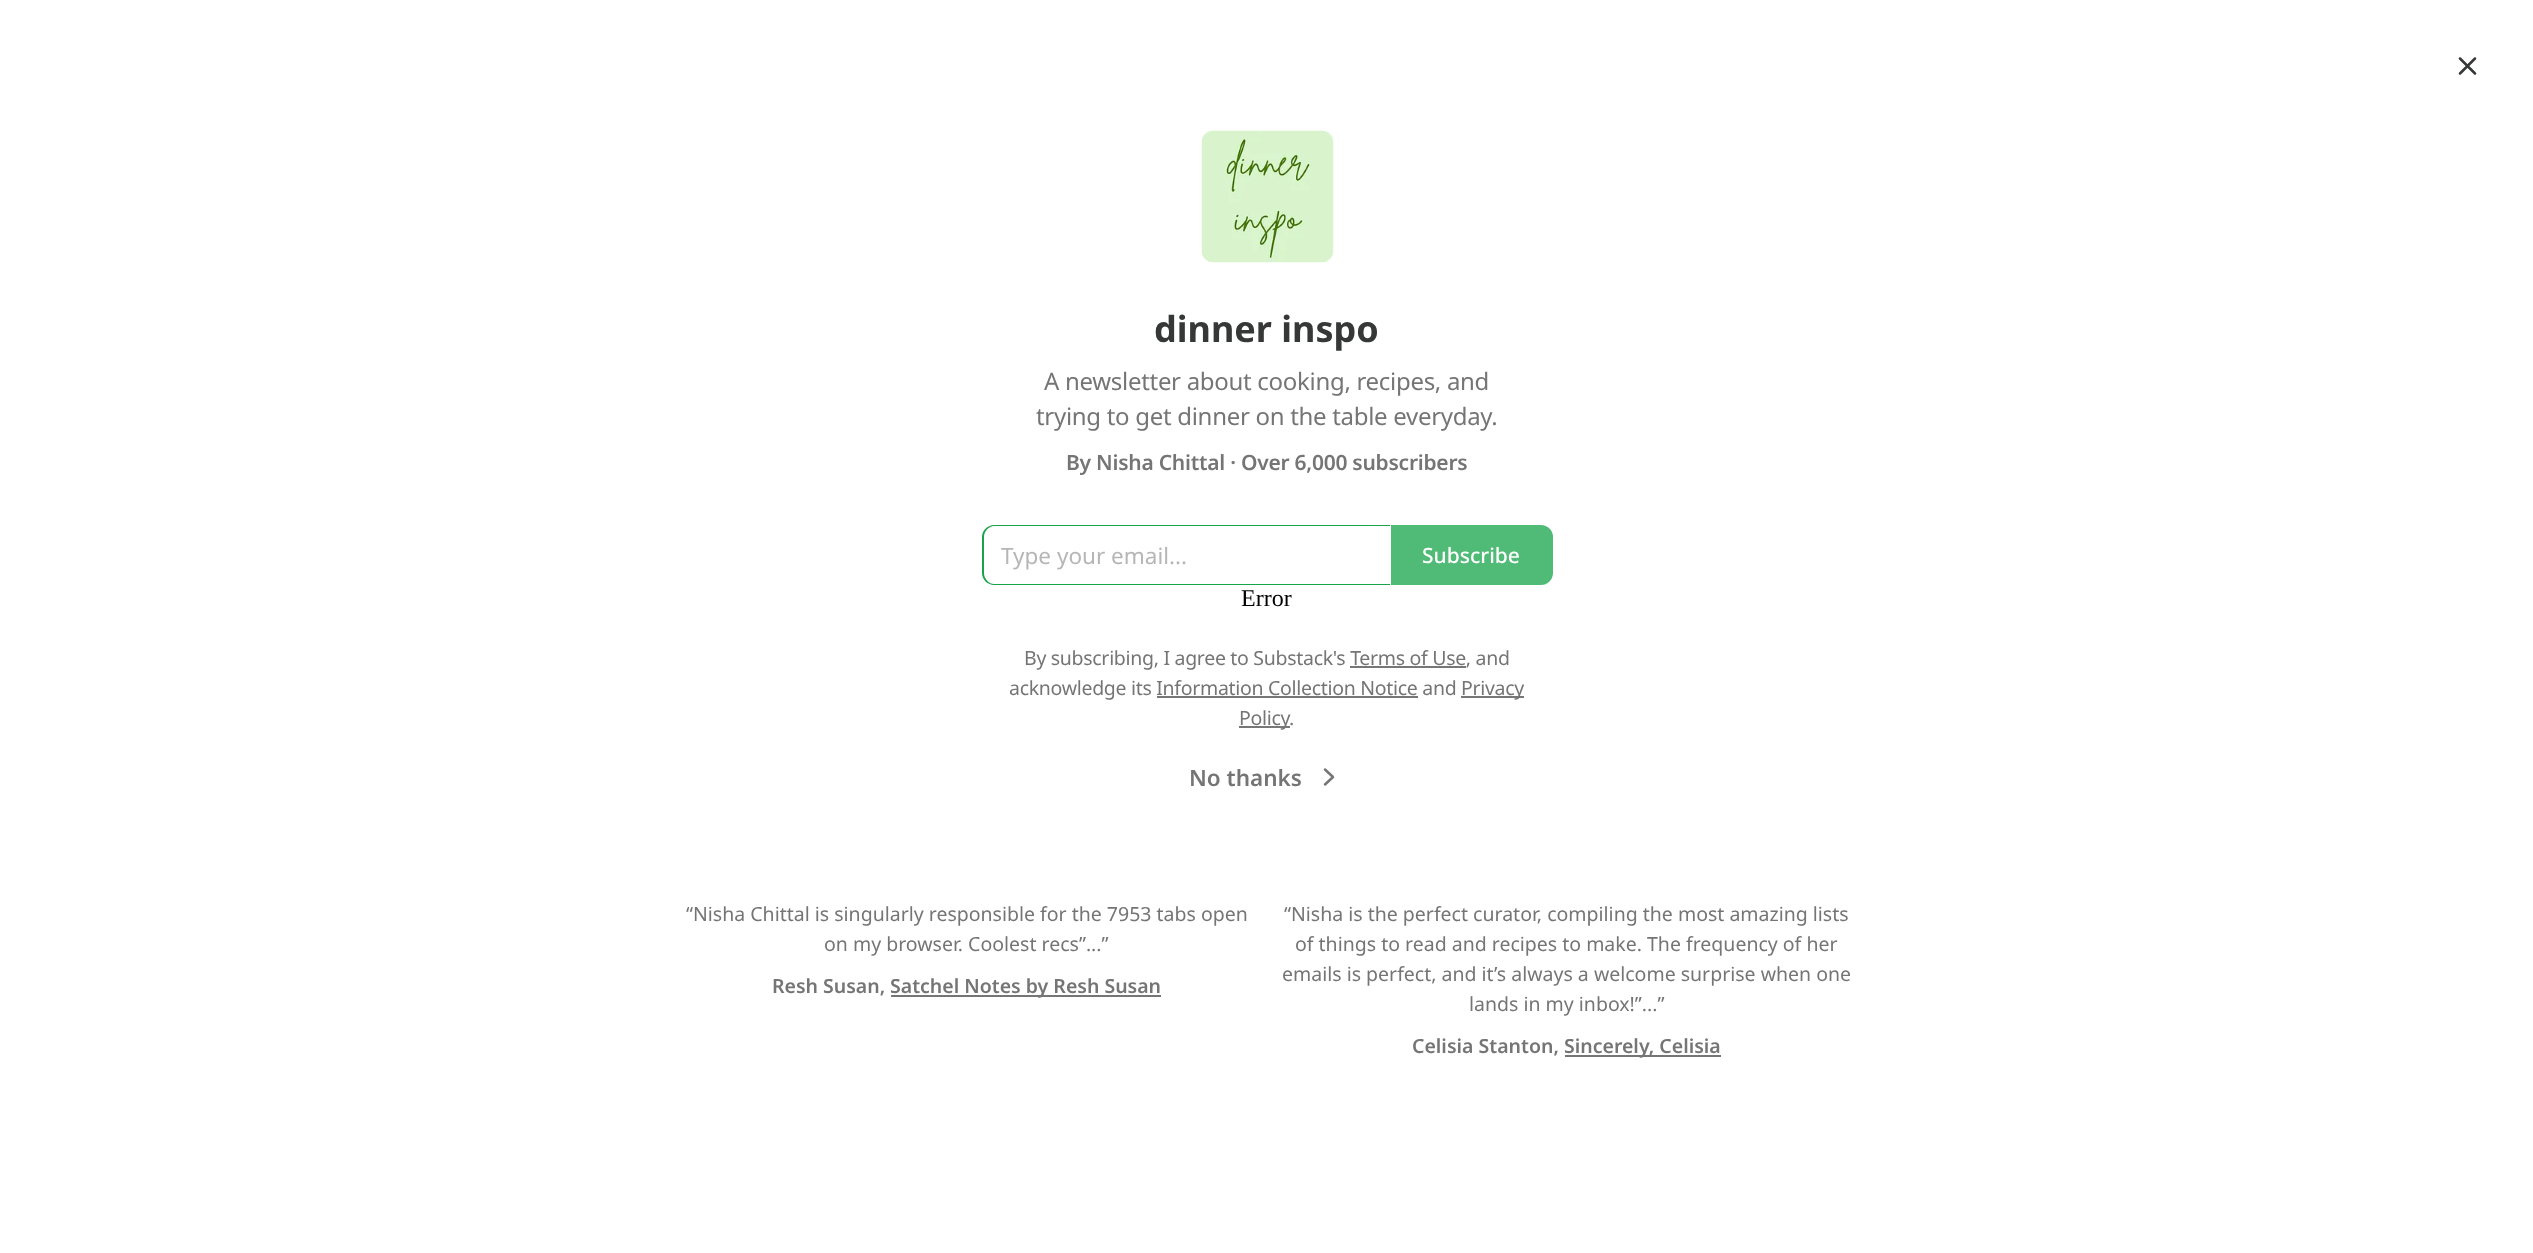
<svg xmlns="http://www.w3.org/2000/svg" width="2533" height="1253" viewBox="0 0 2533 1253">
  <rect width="100%" height="100%" fill="rgb(255,255,255)"/>
  <path d="M2475 58.5L2460 73.5M2460 58.5L2475 73.5" fill="none" stroke="rgb(54,55,55)" stroke-width="2.5" stroke-linecap="round" stroke-linejoin="round"/>
  <image x="1201" y="130" width="133" height="133" href="pic1.png"/>
  <text x="1154" y="342" font-family="Noto Sans" font-size="36" font-weight="bold" fill="rgb(54,55,55)">dinner inspo</text>
  <g font-family="Noto Sans" font-size="24" letter-spacing="-0.3" fill="rgb(117,117,117)">
    <text x="1044" y="390">A newsletter about cooking, recipes, and</text>
    <text x="1036" y="425">trying to get dinner on the table everyday.</text>
  </g>
  <text x="1066" y="470" font-family="Noto Sans" font-size="21" font-weight="600" letter-spacing="-0.25" fill="rgb(117,117,117)">By Nisha Chittal · Over 6,000 subscribers</text>
  <path d="M994 525H1390V585H994C988 585 982 580 982 573V537C982 530 988 525 994 525ZM994 526H1390V584H994C989 584 984 579 984 573V537C984 531 989 526 994 526Z" fill="rgb(22,163,74)" fill-rule="evenodd"/>
  <text x="1001" y="564" font-family="Noto Sans" font-size="22.5" fill="rgb(182,182,182)">Type your email...</text>
  <path d="M1392 526H1541C1547 526 1552 531 1552 537V573C1552 579 1547 584 1541 584H1392Z" fill="rgb(80,186,119)" stroke="rgb(80,186,119)" stroke-width="2"/>
  <text x="1422" y="563" font-family="Noto Sans" font-size="21" font-weight="500" fill="rgb(255,255,255)">Subscribe</text>
  <text x="1241" y="606" font-family="Liberation Serif" font-size="24" fill="rgb(0,0,0)">Error</text>
  <text x="1024" y="665" font-family="Noto Sans" font-size="19.5" letter-spacing="-0.3" fill="rgb(117,117,117)">By subscribing, I agree to Substack's Terms of Use, and</text>
  <rect x="1350" y="666" width="116" height="2" fill="rgb(119,119,119)"/>
  <text x="1009" y="695" font-family="Noto Sans" font-size="19.5" letter-spacing="-0.3" fill="rgb(117,117,117)">acknowledge its Information Collection Notice and</text>
  <rect x="1461" y="696" width="63" height="2" fill="rgb(119,119,119)"/>
  <text x="1461" y="695" font-family="Noto Sans" font-size="19.5" letter-spacing="-0.3" fill="rgb(117,117,117)">Privacy</text>
  <rect x="1157" y="696" width="261" height="2" fill="rgb(119,119,119)"/>
  <rect x="1239" y="726" width="51" height="2" fill="rgb(119,119,119)"/>
  <g font-family="Noto Sans" font-size="19.5" letter-spacing="-0.3" fill="rgb(117,117,117)">
    <text x="1239" y="725">Policy</text>
    <text x="1289" y="725">.</text>
  </g>
  <text x="1189" y="786" font-family="Noto Sans" font-size="22.5" font-weight="600" fill="rgb(117,117,117)">No thanks</text>
  <path d="M1325 784.5L1333 777L1325 769.5" fill="none" stroke="rgb(117,117,117)" stroke-width="2.5" stroke-linecap="round" stroke-linejoin="round"/>
  <g font-family="Noto Sans" font-size="19.5" fill="rgb(117,117,117)">
    <text x="686" y="921">“Nisha Chittal is singularly responsible for the 7953 tabs open</text>
    <text x="824" y="951">on my browser. Coolest recs”...”</text>
  </g>
  <text x="772" y="993" font-family="Noto Sans" font-size="19.5" font-weight="600" fill="rgb(117,117,117)">Resh Susan,</text>
  <rect x="891" y="995" width="270" height="2" fill="rgb(117,117,117)"/>
  <text x="890" y="993" font-family="Noto Sans" font-size="19.5" font-weight="600" fill="rgb(117,117,117)">Satchel Notes by Resh Susan</text>
  <g font-family="Noto Sans" font-size="19.5" fill="rgb(117,117,117)">
    <text x="1284" y="921">“Nisha is the perfect curator, compiling the most amazing lists</text>
    <text x="1295" y="951">of things to read and recipes to make. The frequency of her</text>
    <text x="1282" y="981">emails is perfect, and it’s always a welcome surprise when one</text>
    <text x="1469" y="1011">lands in my inbox!”...”</text>
  </g>
  <text x="1412" y="1053" font-family="Noto Sans" font-size="19.5" font-weight="600" fill="rgb(117,117,117)">Celisia Stanton,</text>
  <rect x="1565" y="1055" width="156" height="2" fill="rgb(117,117,117)"/>
  <text x="1564" y="1053" font-family="Noto Sans" font-size="19.5" font-weight="600" fill="rgb(117,117,117)">Sincerely, Celisia</text>
</svg>
